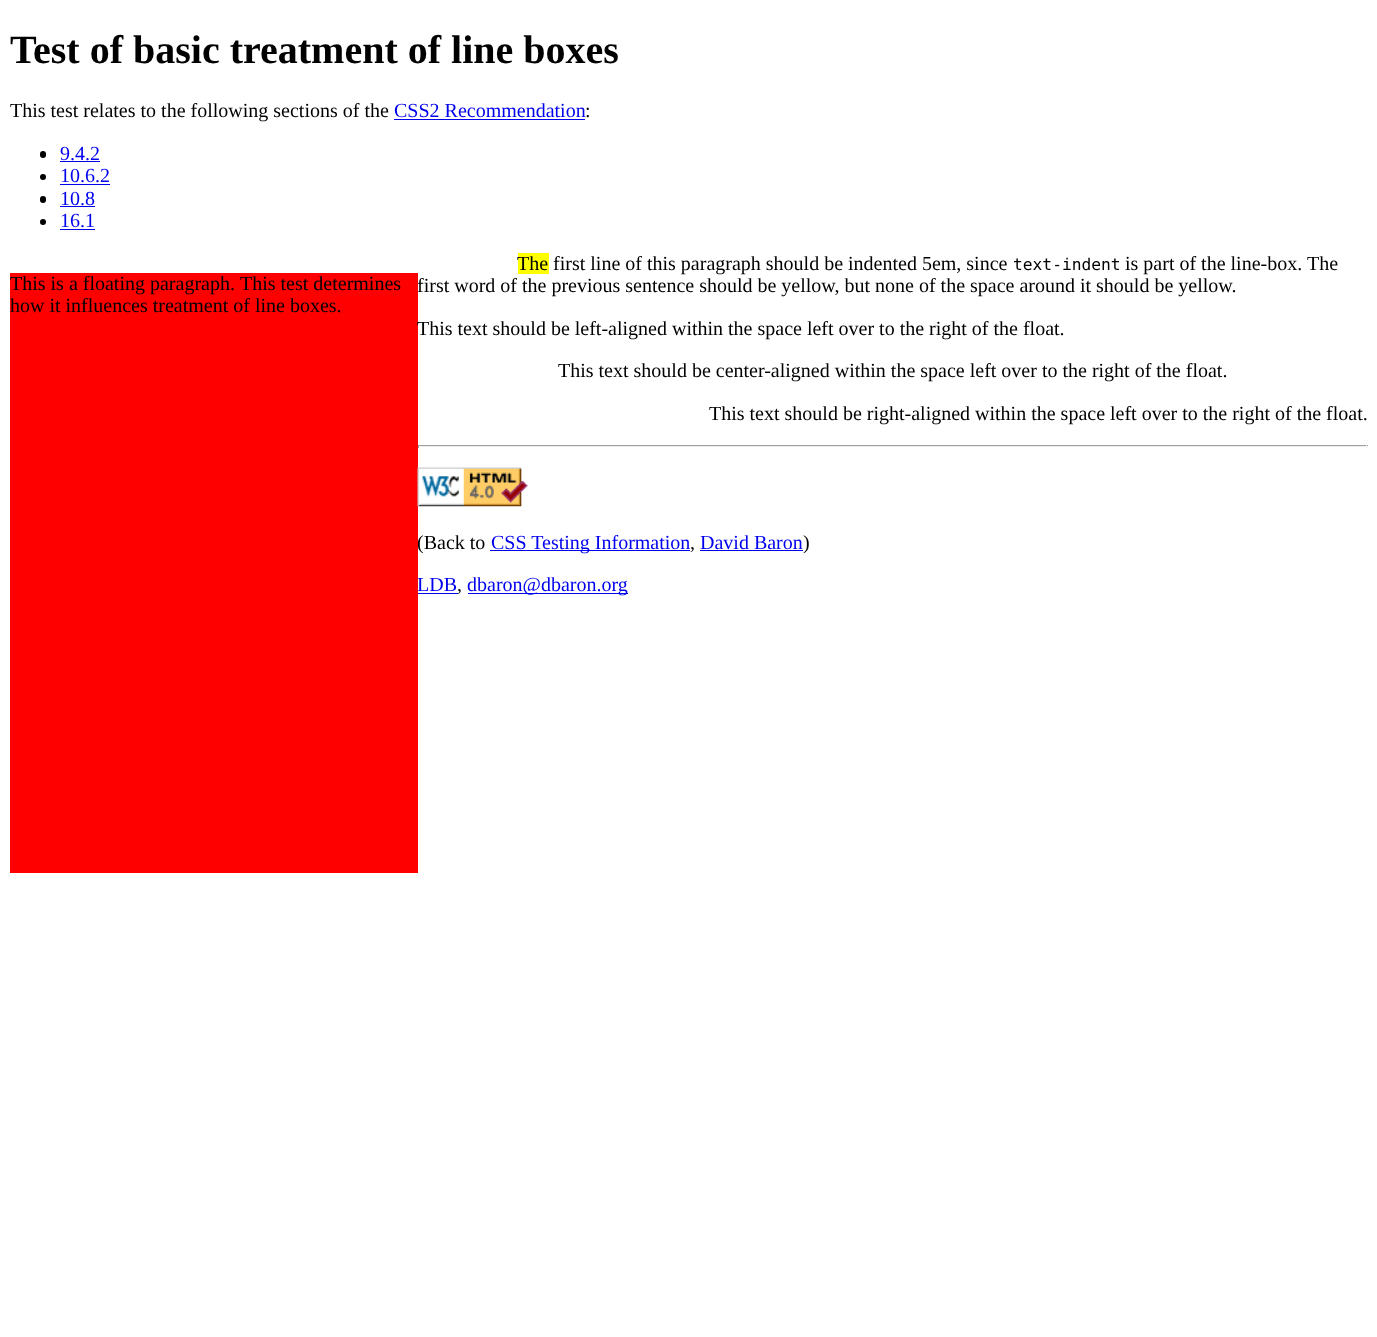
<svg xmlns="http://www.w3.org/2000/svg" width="1377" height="1337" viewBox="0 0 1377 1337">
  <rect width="100%" height="100%" fill="rgb(255,255,255)"/>
  <text x="10" y="63" font-family="Liberation Serif" font-size="40" font-weight="bold" fill="rgb(0,0,0)">Test of basic treatment of line boxes</text>
  <text x="10" y="117" font-family="Liberation Serif" font-size="20" fill="rgb(0,0,0)">This test relates to the following sections of the</text>
  <text x="394" y="117" font-family="Liberation Serif" font-size="20" fill="rgb(0,0,238)">CSS2 Recommendation</text>
  <rect x="394" y="119" width="191" height="1" fill="rgb(0,0,238)"/>
  <text x="585" y="117" font-family="Liberation Serif" font-size="20" fill="rgb(0,0,0)">:</text>
  <rect x="40" y="151" width="6" height="7" rx="3" fill="rgb(0,0,0)"/>
  <text x="60" y="160" font-family="Liberation Serif" font-size="20" fill="rgb(0,0,238)">9.4.2</text>
  <rect x="60" y="161" width="40" height="1" fill="rgb(0,0,238)"/>
  <circle cx="43" cy="177" r="3" fill="rgb(0,0,0)"/>
  <text x="60" y="182" font-family="Liberation Serif" font-size="20" fill="rgb(0,0,238)">10.6.2</text>
  <rect x="60" y="184" width="50" height="1" fill="rgb(0,0,238)"/>
  <rect x="40" y="196" width="6" height="7" rx="3" fill="rgb(0,0,0)"/>
  <text x="60" y="205" font-family="Liberation Serif" font-size="20" fill="rgb(0,0,238)">10.8</text>
  <rect x="60" y="206" width="35" height="1" fill="rgb(0,0,238)"/>
  <circle cx="43" cy="222" r="3" fill="rgb(0,0,0)"/>
  <text x="60" y="227" font-family="Liberation Serif" font-size="20" fill="rgb(0,0,238)">16.1</text>
  <rect x="60" y="229" width="35" height="1" fill="rgb(0,0,238)"/>
  <rect x="10" y="273" width="408" height="600" fill="rgb(255,0,0)"/>
  <g font-family="Liberation Serif" font-size="20" fill="rgb(0,0,0)">
    <text x="10" y="290">This is a floating paragraph.</text>
    <text x="240" y="290">This test determines</text>
    <text x="10" y="312">how it influences treatment of line boxes.</text>
  </g>
  <rect x="518" y="253" width="31" height="21" fill="rgb(255,255,0)"/>
  <text x="517" y="270" font-family="Liberation Serif" font-size="20" fill="rgb(0,0,0)">The first line of this paragraph should be indented 5em, since</text>
  <text x="1013" y="270" font-family="DejaVu Sans Mono" font-size="16.25" fill="rgb(0,0,0)">text-indent</text>
  <g font-family="Liberation Serif" font-size="20" fill="rgb(0,0,0)">
    <text x="1125" y="270">is part of the line-box.</text>
    <text x="1307" y="270">The</text>
    <text x="417" y="292">first word of the previous sentence should be yellow, but none of the space around it should be yellow.</text>
    <text x="417" y="335">This text should be left-aligned within the space left over to the right of the float.</text>
    <text x="558" y="377">This text should be center-aligned within the space left over to the right of the float.</text>
    <text x="709" y="420">This text should be right-aligned within the space left over to the right of the float.</text>
  </g>
  <rect x="418" y="445" width="950" height="1" fill="rgb(159,159,159)"/>
  <rect x="1366" y="445" width="1" height="3" fill="rgb(238,238,238)"/>
  <rect x="418" y="446" width="950" height="1" fill="rgb(238,238,238)"/>
  <rect x="418" y="445" width="1" height="3" fill="rgb(159,159,159)"/>
  <image x="417" y="467" width="111" height="40" href="pic1.png"/>
  <text x="417" y="549" font-family="Liberation Serif" font-size="20" fill="rgb(0,0,0)">(Back to</text>
  <rect x="490" y="550" width="200" height="1" fill="rgb(0,0,238)"/>
  <text x="491" y="549" font-family="Liberation Serif" font-size="20" fill="rgb(0,0,238)">CSS Testing Information</text>
  <text x="690" y="549" font-family="Liberation Serif" font-size="20" fill="rgb(0,0,0)">,</text>
  <text x="700" y="549" font-family="Liberation Serif" font-size="20" fill="rgb(0,0,238)">David Baron</text>
  <rect x="700" y="550" width="103" height="1" fill="rgb(0,0,238)"/>
  <text x="803" y="549" font-family="Liberation Serif" font-size="20" fill="rgb(0,0,0)">)</text>
  <text x="417" y="591" font-family="Liberation Serif" font-size="20" fill="rgb(0,0,238)">LDB</text>
  <rect x="418" y="593" width="40" height="1" fill="rgb(0,0,238)"/>
  <text x="457" y="591" font-family="Liberation Serif" font-size="20" fill="rgb(0,0,0)">,</text>
  <rect x="468" y="593" width="160" height="1" fill="rgb(0,0,238)"/>
  <text x="467" y="591" font-family="Liberation Serif" font-size="20" fill="rgb(0,0,238)">dbaron@dbaron.org</text>
</svg>
